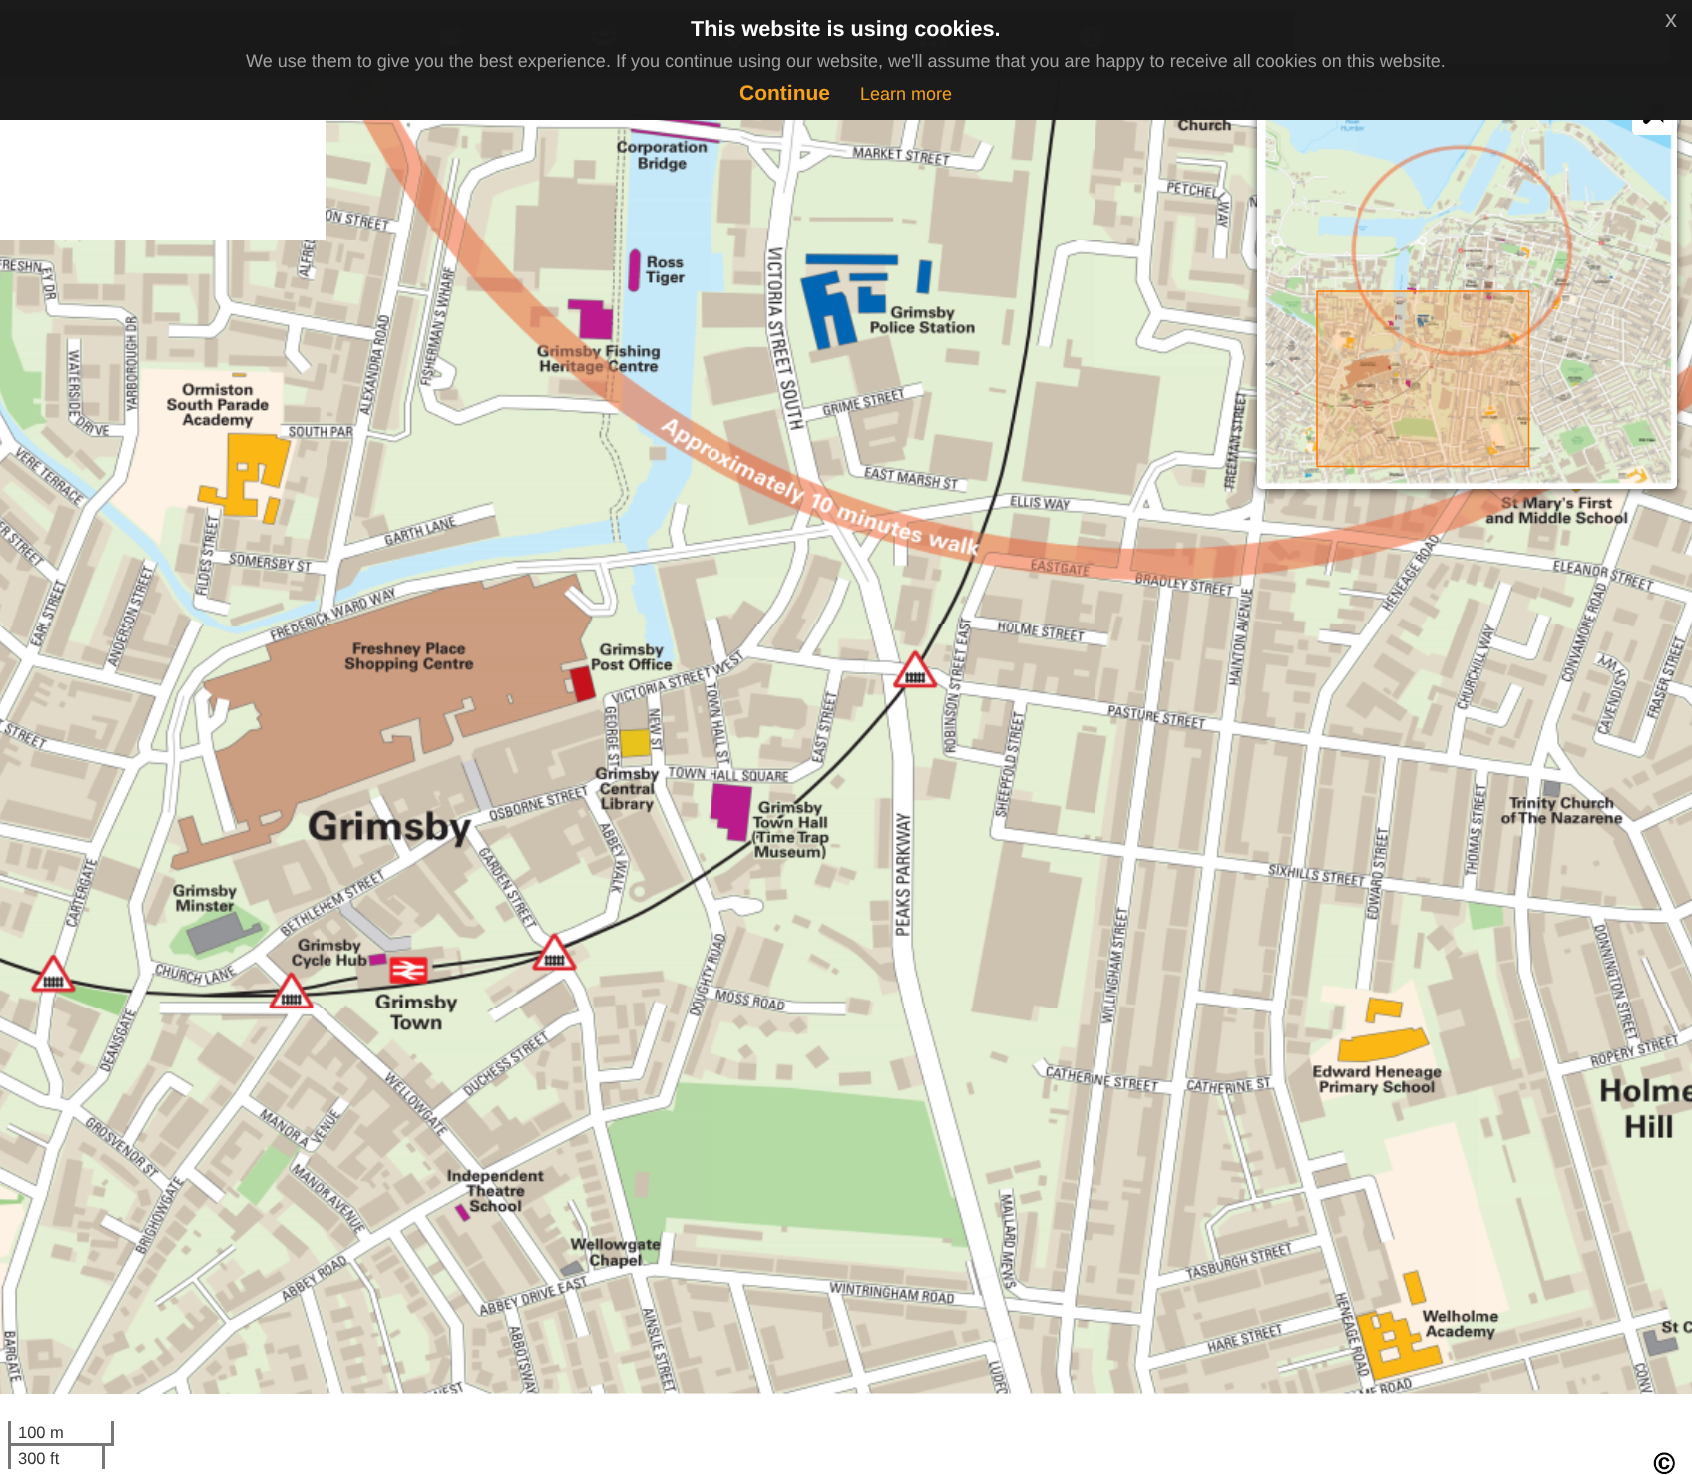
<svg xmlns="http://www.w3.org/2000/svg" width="1692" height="1475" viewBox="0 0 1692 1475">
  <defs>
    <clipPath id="clip1"><rect x="1262" y="95" width="411" height="390"/></clipPath>
  </defs>
  <rect width="100%" height="100%" fill="rgb(255,255,255)"/>
  <rect x="0" y="0" width="1692" height="75" fill="rgb(27,27,27)"/>
  <rect x="0" y="75" width="1692" height="2" fill="rgb(8,8,8)"/>
  <image x="439" y="29" width="22" height="16" href="pic1.png"/>
  <image x="591" y="27" width="27" height="20" href="pic2.png"/>
  <image x="727" y="26" width="22" height="22" href="pic3.png"/>
  <image x="919" y="26" width="27" height="22" href="pic4.png"/>
  <image x="1080" y="26" width="21" height="22" href="pic5.png"/>
  <rect x="1295" y="12" width="375" height="51" rx="6" fill="rgb(255,255,255)"/>
  <path d="M1300 15H1664C1666 15 1668 17 1668 20V19C1668 16 1666 14 1663 14H1301C1298 14 1296 16 1296 19V20C1296 17 1298 15 1300 15Z" fill="rgb(236,236,236)"/>
  <rect x="1296" y="13" width="373" height="49" rx="5" fill="none" stroke="rgb(204,204,204)" stroke-width="2"/>
  <path d="M1639.5 34.5H1651.5L1645.5 40.5Z" fill="rgb(153,153,153)"/>
  <image x="326" y="77" width="385" height="163" href="pic6.png"/>
  <image x="711" y="77" width="384" height="163" href="pic7.png"/>
  <image x="1095" y="77" width="383" height="163" href="pic8.png"/>
  <image x="1478" y="77" width="214" height="163" href="pic9.png"/>
  <image x="1095" y="240" width="383" height="384" href="pic13.png"/>
  <image x="1478" y="240" width="214" height="384" href="pic14.png"/>
  <rect x="1257" y="92" width="420" height="399" rx="5" fill="rgba(0,0,0,0.65)" filter="blur(4px)"/>
  <rect x="1259.5" y="92.5" width="415" height="394" rx="2.5" fill="none" stroke="rgb(255,255,255)" stroke-width="5"/>
  <image x="1262" y="95" width="96" height="265" href="pic25.png"/>
  <image x="1358" y="95" width="315" height="265" href="pic26.png"/>
  <g clip-path="url(#clip1)">
    <path d="M1632 130V94H1672V135H1636C1634 135 1632 133 1632 130Z" fill="rgb(255,255,255)"/>
  </g>
  <path d="M1661.5 105.5H1648.5L1661.5 118.5Z" fill="rgb(0,0,0)" stroke="rgb(0,0,0)" stroke-width="3.7"/>
  <path d="M1660.5 106.5L1646 121" fill="none" stroke="rgb(0,0,0)" stroke-width="5.6" stroke-linecap="round"/>
  <rect x="0" y="12" width="1692" height="108" fill="rgba(25,25,25,0.9)"/>
  <rect x="0" y="12" width="1692" height="108" fill="rgba(25,25,25,0.9)"/>
  <text x="691" y="36" font-family="Liberation Sans" font-size="21.6" font-weight="bold" fill="rgb(255,255,255)">This website is using cookies.</text>
  <text x="1665" y="27" font-family="Liberation Sans" font-size="24" fill="rgb(162,162,162)">x</text>
  <text x="246" y="67" font-family="Liberation Sans" font-size="18" fill="rgb(162,162,162)">We use them to give you the best experience. If you continue using our website, we'll assume that you are happy to receive all cookies on this website.</text>
  <text x="739" y="100" font-family="Liberation Sans" font-size="21" font-weight="bold" fill="rgb(246,162,29)">Continue</text>
  <text x="860" y="100" font-family="Liberation Sans" font-size="18" fill="rgb(246,162,29)">Learn more</text>
  <image x="0" y="240" width="327" height="386" href="pic10.png"/>
  <image x="327" y="240" width="384" height="384" href="pic11.png"/>
  <image x="711" y="240" width="384" height="384" href="pic12.png"/>
  <image x="0" y="626" width="327" height="382" href="pic15.png"/>
  <image x="327" y="624" width="384" height="384" href="pic16.png"/>
  <image x="711" y="624" width="384" height="384" href="pic17.png"/>
  <image x="1095" y="624" width="383" height="384" href="pic18.png"/>
  <image x="1478" y="624" width="214" height="384" href="pic19.png"/>
  <image x="0" y="1008" width="327" height="386" href="pic20.png"/>
  <image x="709" y="1008" width="386" height="386" href="pic22.png"/>
  <image x="327" y="1008" width="384" height="386" href="pic21.png"/>
  <image x="1093" y="1008" width="385" height="386" href="pic23.png"/>
  <image x="1478" y="1008" width="214" height="386" href="pic24.png"/>
  <image x="1262" y="360" width="96" height="124" href="pic27.png"/>
  <image x="1358" y="360" width="315" height="124" href="pic28.png"/>
  <rect x="1317" y="291" width="211" height="175" fill="rgba(255,120,0,0.2)"/>
  <path d="M1317 466.5V291H1528.5V466.5Z" fill="none" stroke="rgb(255,120,0)" stroke-width="1.5" stroke-linecap="round" stroke-linejoin="round"/>
  <rect x="111" y="1421" width="3" height="25" fill="rgb(119,119,119)"/>
  <rect x="105" y="1443" width="9" height="3" fill="rgb(119,119,119)"/>
  <rect x="8" y="1421" width="3" height="25" fill="rgb(119,119,119)"/>
  <text x="18" y="1438" font-family="Liberation Sans" font-size="16.5" fill="rgb(51,51,51)">100 m</text>
  <rect x="8" y="1443" width="97" height="3" fill="rgb(119,119,119)"/>
  <rect x="102" y="1443" width="3" height="26" fill="rgb(119,119,119)"/>
  <rect x="8" y="1443" width="3" height="26" fill="rgb(119,119,119)"/>
  <text x="18" y="1464" font-family="Liberation Sans" font-size="16.5" fill="rgb(51,51,51)">300 ft</text>
  <image x="1653" y="1452" width="22" height="23" href="pic29.png"/>
</svg>
